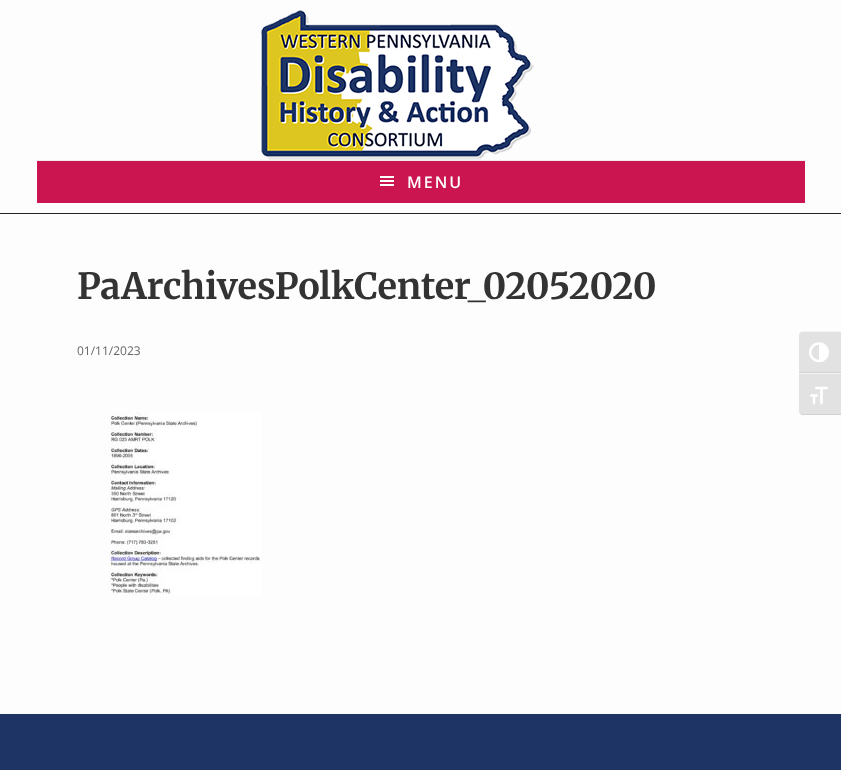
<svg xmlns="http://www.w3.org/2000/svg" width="841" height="770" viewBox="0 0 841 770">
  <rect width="100%" height="100%" fill="rgb(253,253,253)"/>
  <rect x="0" y="213" width="841" height="1" fill="rgb(37,36,34)"/>
  <image x="261" y="10" width="273" height="150" href="pic1.png"/>
  <rect x="37" y="161" width="768" height="42" fill="rgb(202,21,81)"/>
  <rect x="37" y="160" width="768" height="1" fill="rgb(238,238,238)"/>
  <image x="380" y="176" width="14" height="10" href="pic2.png"/>
  <text x="407" y="188" font-family="Open Sans" font-size="16" font-weight="600" letter-spacing="2" fill="rgb(255,255,255)">MENU</text>
  <text x="77" y="299" font-family="Merriweather" font-size="36" font-weight="bold" fill="rgb(51,51,51)">PaArchivesPolkCenter_02052020</text>
  <text x="77" y="355" font-family="Open Sans" font-size="12" fill="rgb(102,102,102)">01/11/2023</text>
  <image x="109" y="412" width="152" height="184" href="pic3.png"/>
  <rect x="0" y="714" width="841" height="56" fill="rgb(29,52,100)"/>
  <path d="M803 331H841V373H799V335C799 333 801 331 803 331Z" fill="rgb(226,226,226)"/>
  <path d="M803 332H841V331H803C801 331 799 333 799 335C799 333 801 332 803 332Z" fill="rgb(245,245,245)"/>
  <rect x="799" y="372" width="42" height="1" fill="rgb(210,210,210)"/>
  <image x="809" y="342" width="20" height="21" href="pic4.png"/>
  <path d="M799 373H841V415H803C801 415 799 413 799 411Z" fill="rgb(226,226,226)"/>
  <rect x="799" y="373" width="42" height="1" fill="rgb(245,245,245)"/>
  <path d="M841 415V414H803C801 414 799 413 799 411C799 413 801 415 803 415Z" fill="rgb(210,210,210)"/>
  <image x="810" y="386" width="18" height="19" href="pic5.png"/>
</svg>
